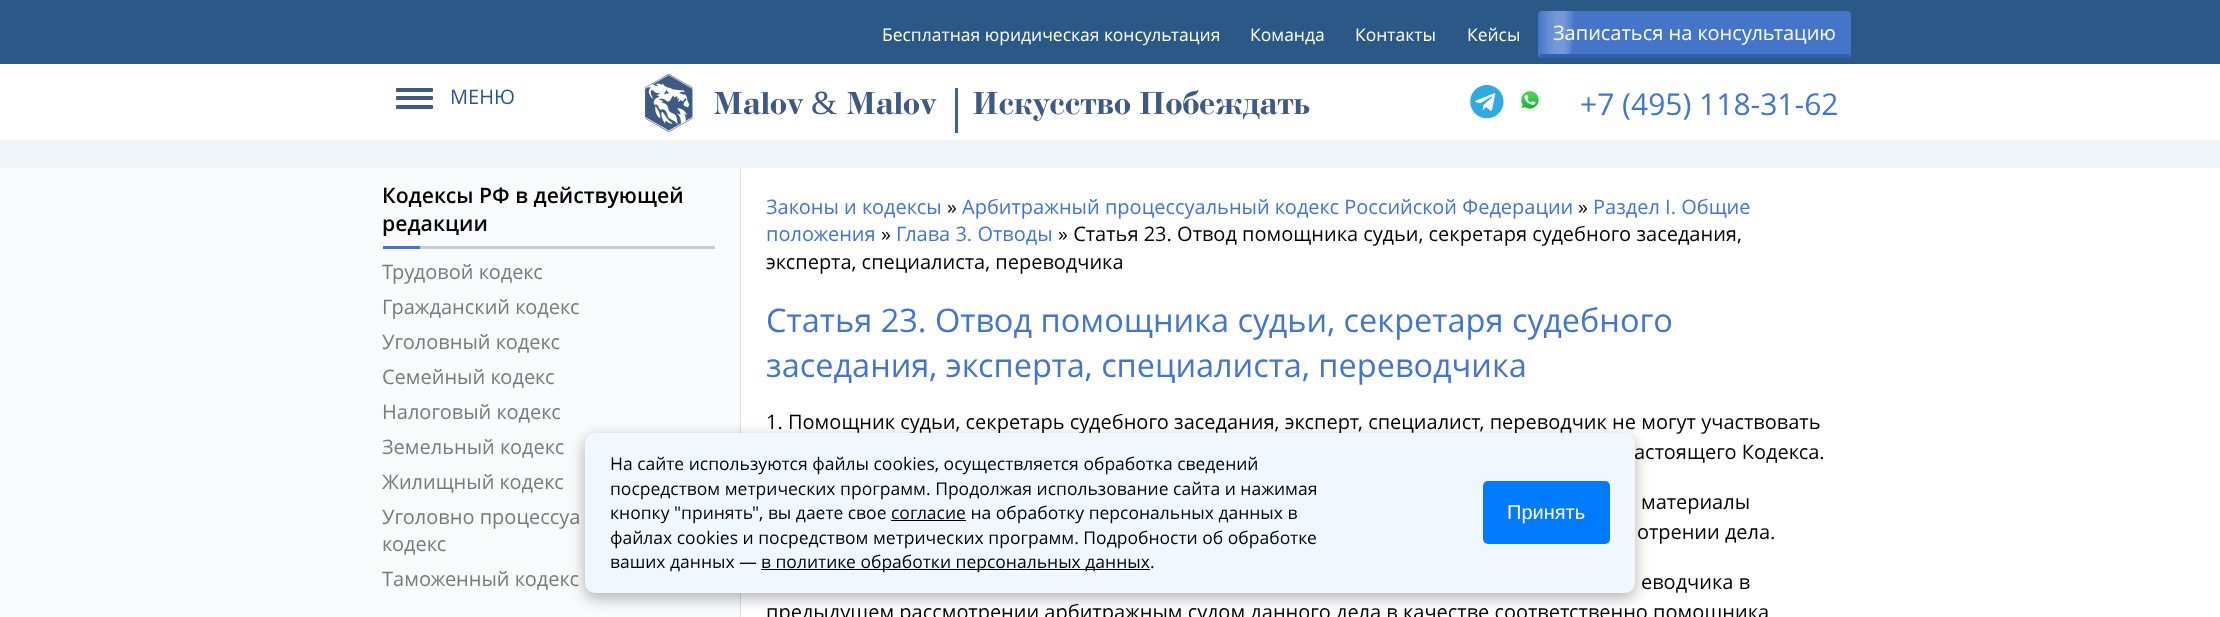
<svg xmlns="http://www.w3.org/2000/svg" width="2220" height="617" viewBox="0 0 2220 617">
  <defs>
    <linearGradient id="g1" gradientUnits="userSpaceOnUse" x1="1538" y1="33" x2="1575" y2="33"><stop offset="0" stop-color="rgb(255,255,255)" stop-opacity="0"/><stop offset="0.01" stop-color="rgb(255,255,255)" stop-opacity="0.01"/><stop offset="0.3" stop-color="rgb(255,255,255)" stop-opacity="0.18"/><stop offset="0.5" stop-color="rgb(255,255,255)" stop-opacity="0.26"/><stop offset="0.71" stop-color="rgb(255,255,255)" stop-opacity="0.26"/><stop offset="1" stop-color="rgb(255,255,255)" stop-opacity="0"/></linearGradient>
  </defs>
  <rect width="100%" height="100%" fill="rgb(255,255,255)"/>
  <rect x="0" y="0" width="2220" height="64" fill="rgb(42,89,135)"/>
  <g font-family="Open Sans" font-size="17.5" fill="rgb(255,255,255)">
    <text x="882" y="41">Бесплатная юридическая консультация</text>
    <text x="1250" y="41">Команда</text>
    <text x="1355" y="41">Контакты</text>
    <text x="1467" y="41">Кейсы</text>
  </g>
  <rect x="1538" y="11" width="313" height="47" rx="4" fill="rgb(68,117,201)"/>
  <rect x="1540" y="54" width="310" height="4" fill="rgb(47,98,183)"/>
  <text x="1553" y="40" font-family="Open Sans" font-size="20" fill="rgb(255,255,255)">Записаться на консультацию</text>
  <path d="M1541 11H1579L1571 54H1538V32Z" fill="url(#g1)"/>
  <rect x="396" y="88" width="37" height="4" rx="1" fill="rgb(63,89,132)"/>
  <rect x="396" y="96" width="37" height="4" rx="1" fill="rgb(63,89,132)"/>
  <rect x="396" y="105" width="37" height="4" rx="1" fill="rgb(63,89,132)"/>
  <text x="450" y="104" font-family="Open Sans" font-size="20" fill="rgb(42,89,135)">МЕНЮ</text>
  <image x="645" y="74" width="48" height="58" href="pic1.png"/>
  <text x="713" y="114" font-family="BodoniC" font-size="33.75" font-weight="bold" fill="rgb(63,89,133)">Malov</text>
  <text x="811" y="114" font-family="Liberation Serif" font-size="33.75" fill="rgb(63,89,133)">&amp;</text>
  <text x="846" y="114" font-family="BodoniC" font-size="33.75" font-weight="bold" fill="rgb(63,89,133)">Malov</text>
  <rect x="955" y="88" width="3" height="45" fill="rgb(63,97,138)"/>
  <text x="972" y="114" font-family="BodoniC" font-size="33.75" font-weight="bold" fill="rgb(63,89,133)">Искусство Побеждать</text>
  <image x="1470" y="85" width="34" height="34" href="pic2.png"/>
  <image x="1519" y="89" width="23" height="22" href="pic3.png"/>
  <text x="1580" y="115" font-family="Open Sans" font-size="30" fill="rgb(68,117,201)">+7 (495) 118-31-62</text>
  <rect x="0" y="140" width="2220" height="28" fill="rgb(240,245,249)"/>
  <rect x="0" y="168" width="740" height="449" fill="rgb(249,250,251)"/>
  <g font-family="Open Sans" font-size="21.25" font-weight="600" fill="rgb(0,0,0)">
    <text>
      <tspan x="382" y="203">Кодексы РФ в действующей</tspan>
      <tspan x="382" y="231">редакции</tspan>
    </text>
  </g>
  <rect x="420" y="246" width="295" height="3" fill="rgb(199,206,218)"/>
  <rect x="383" y="246" width="37" height="3" fill="rgb(68,117,201)"/>
  <g font-family="Open Sans" font-size="20" fill="rgb(121,122,122)">
    <text>
      <tspan x="382" y="279">Трудовой кодекс</tspan>
      <tspan x="382" y="314">Гражданский кодекс</tspan>
      <tspan x="382" y="349">Уголовный кодекс</tspan>
      <tspan x="382" y="384">Семейный кодекс</tspan>
      <tspan x="382" y="419">Налоговый кодекс</tspan>
      <tspan x="382" y="454">Земельный кодекс</tspan>
      <tspan x="382" y="489">Жилищный кодекс</tspan>
      <tspan x="382" y="524">Уголовно процессуа</tspan>
      <tspan x="382" y="551">кодекс</tspan>
      <tspan x="382" y="586">Таможенный кодекс</tspan>
    </text>
  </g>
  <rect x="740" y="168" width="1" height="449" fill="rgb(212,222,230)"/>
  <text x="766" y="214" font-family="Open Sans" font-size="20" fill="rgb(68,117,201)">Законы и кодексы</text>
  <text x="947" y="214" font-family="Open Sans" font-size="20" fill="rgb(0,0,0)">»</text>
  <text x="962" y="214" font-family="Open Sans" font-size="20" fill="rgb(68,117,201)">Арбитражный процессуальный кодекс Российской Федерации</text>
  <text x="1578" y="214" font-family="Open Sans" font-size="20" fill="rgb(0,0,0)">»</text>
  <g font-family="Open Sans" font-size="20" fill="rgb(68,117,201)">
    <text x="1593" y="214">Раздел I. Общие</text>
    <text x="766" y="241">положения</text>
  </g>
  <text x="881" y="241" font-family="Open Sans" font-size="20" fill="rgb(0,0,0)">»</text>
  <text x="896" y="241" font-family="Open Sans" font-size="20" fill="rgb(68,117,201)">Глава 3. Отводы</text>
  <g font-family="Open Sans" font-size="20" fill="rgb(0,0,0)">
    <text x="1058" y="241">» Статья 23. Отвод помощника судьи, секретаря судебного заседания,</text>
    <text x="766" y="269">эксперта, специалиста, переводчика</text>
  </g>
  <g font-family="Open Sans" font-size="32.5" fill="rgb(68,117,201)">
    <text>
      <tspan x="766" y="332">Статья 23. Отвод помощника судьи, секретаря судебного</tspan>
      <tspan x="766" y="377">заседания, эксперта, специалиста, переводчика</tspan>
    </text>
  </g>
  <g font-family="Open Sans" font-size="20" fill="rgb(0,0,0)">
    <text x="766" y="429">1. Помощник судьи, секретарь судебного заседания, эксперт, специалист, переводчик не могут участвовать</text>
    <text x="1634" y="459">астоящего Кодекса.</text>
    <text x="1641" y="509">материалы</text>
    <text x="1637" y="539">отрении дела.</text>
    <text x="1641" y="589">еводчика в</text>
    <text x="766" y="619">предыдущем рассмотрении арбитражным судом данного дела в качестве соответственно помощника</text>
  </g>
  <rect x="585" y="438" width="1050" height="160" rx="10" fill="rgba(0,0,0,0.3)" filter="blur(7.5px)"/>
  <rect x="585" y="433" width="1050" height="160" rx="10" fill="rgb(240,247,255)"/>
  <g font-family="Open Sans" font-size="17.5" fill="rgb(0,0,0)">
    <text>
      <tspan x="610" y="470">На сайте используются файлы cookies, осуществляется обработка сведений</tspan>
      <tspan x="610" y="495">посредством метрических программ. Продолжая использование сайта и нажимая</tspan>
      <tspan x="610" y="519">кнопку "принять", вы даете свое согласие на обработку персональных данных в</tspan>
    </text>
  </g>
  <rect x="891" y="520" width="75" height="1" fill="rgb(0,0,0)"/>
  <g font-family="Open Sans" font-size="17.5" fill="rgb(0,0,0)">
    <text>
      <tspan x="610" y="544">файлах cookies и посредством метрических программ. Подробности об обработке</tspan>
      <tspan x="610" y="568">ваших данных —</tspan>
    </text>
  </g>
  <rect x="761" y="569" width="389" height="1" fill="rgb(0,0,0)"/>
  <text x="761" y="568" font-family="Open Sans" font-size="17.5" fill="rgb(0,0,0)">в политике обработки персональных данных.</text>
  <rect x="1483" y="481" width="127" height="63" rx="5" fill="rgb(0,123,255)"/>
  <text x="1507" y="519" font-family="Liberation Sans" font-size="20" fill="rgb(255,255,255)">Принять</text>
</svg>
